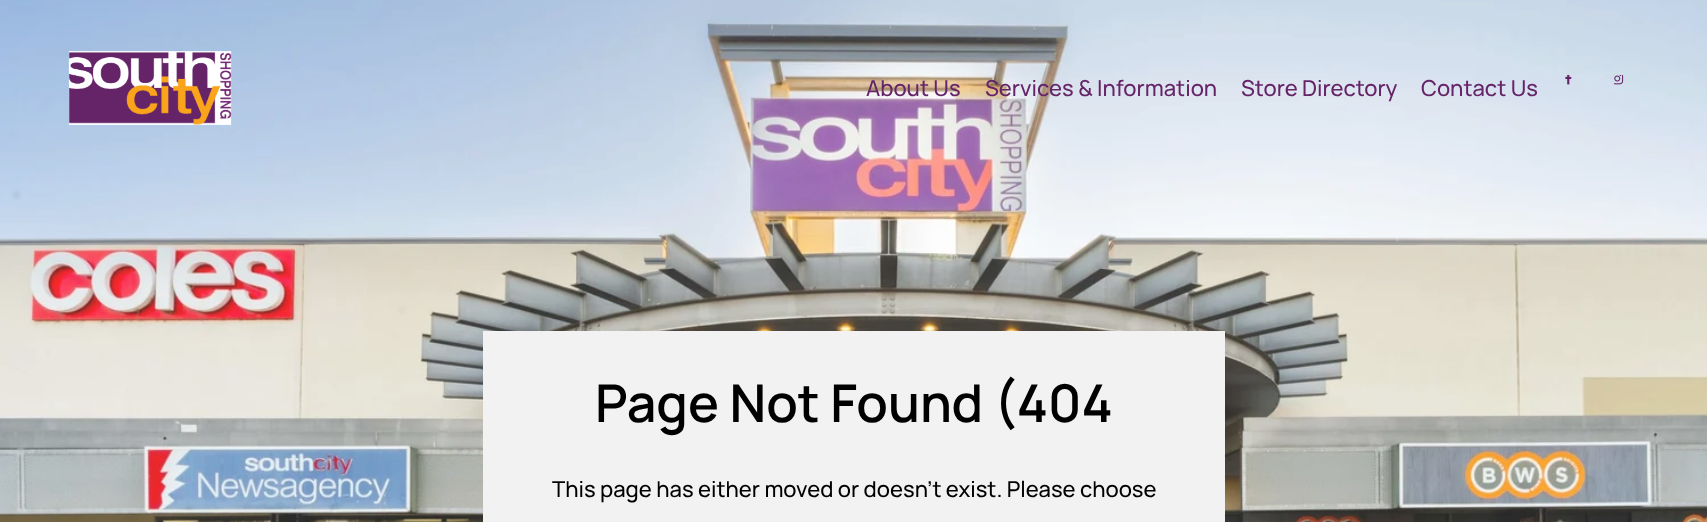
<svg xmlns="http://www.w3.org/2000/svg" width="1707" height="522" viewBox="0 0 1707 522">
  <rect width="100%" height="100%" fill="rgb(255,255,255)"/>
  <image x="0" y="0" width="1707" height="522" href="pic4.png"/>
  <image x="68" y="51" width="164" height="74" href="pic1.png"/>
  <g font-family="Manrope" font-size="22" font-weight="500" fill="rgb(101,36,104)">
    <text x="866" y="96">About Us</text>
    <text x="985" y="96">Services &amp; Information</text>
    <text x="1241" y="96">Store Directory</text>
    <text x="1421" y="96">Contact Us</text>
  </g>
  <image x="1565" y="75" width="7" height="10" href="pic2.png"/>
  <image x="1614" y="75" width="10" height="10" href="pic3.png"/>
  <rect x="483" y="331" width="742" height="191" fill="rgb(242,242,242)"/>
  <text x="595" y="422" font-family="Manrope" font-size="52" font-weight="600" fill="rgb(0,0,0)">Page Not Found (404</text>
  <text x="552" y="497" font-family="Manrope" font-size="22" font-weight="500" fill="rgb(0,0,0)">This page has either moved or doesn’t exist. Please choose</text>
</svg>
